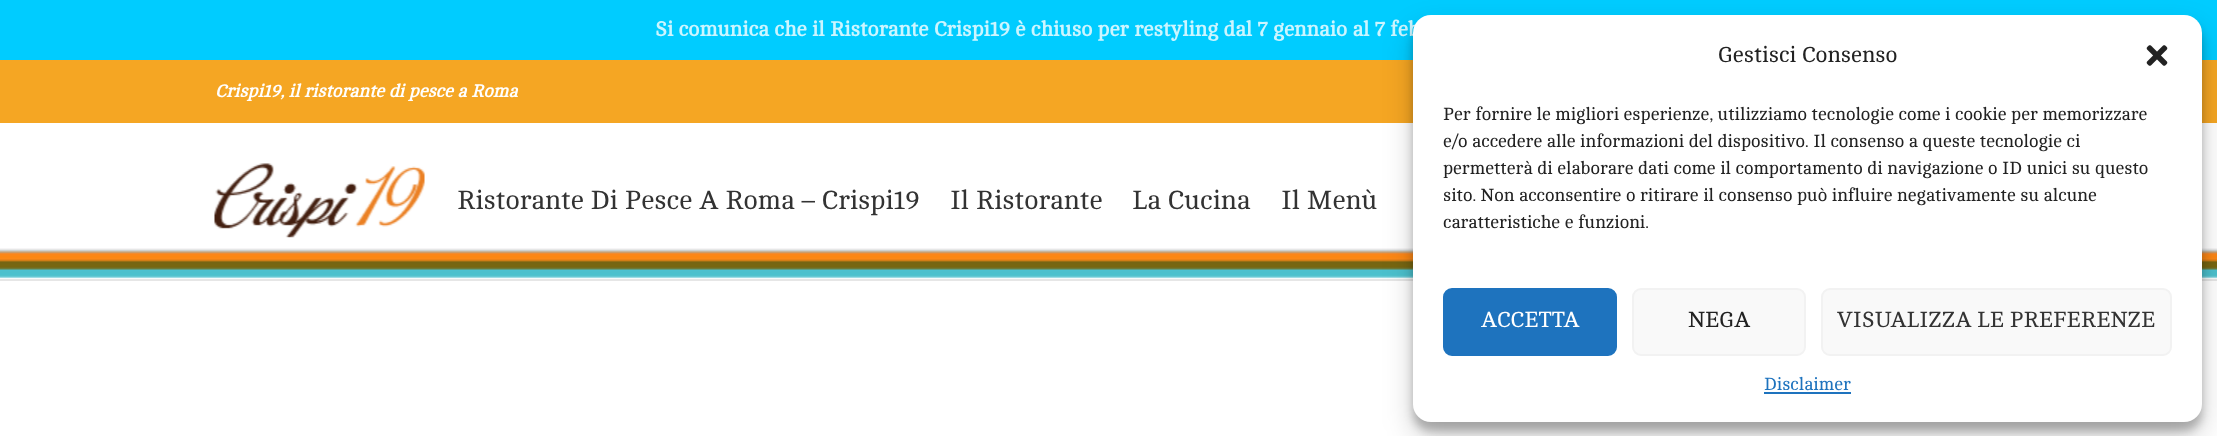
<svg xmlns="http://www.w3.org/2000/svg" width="2217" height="436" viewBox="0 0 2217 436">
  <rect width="100%" height="100%" fill="rgb(255,255,255)"/>
  <rect x="0" y="0" width="2217" height="60" fill="rgb(0,204,255)"/>
  <text x="655" y="36" font-family="Cambo" font-size="21" font-weight="bold" fill="rgb(204,245,255)">Si comunica che il Ristorante Crispi19 è chiuso per restyling dal 7 gennaio al 7 feb</text>
  <rect x="0" y="60" width="2217" height="63" fill="rgb(245,166,35)"/>
  <text x="215" y="97" font-family="Cambo" font-size="18" font-weight="bold" font-style="italic" fill="rgb(255,255,255)">Crispi19, il ristorante di pesce a Roma</text>
  <image x="0" y="248" width="2217" height="31" href="pic1.png"/>
  <rect x="0" y="279" width="2217" height="2" fill="rgb(230,230,230)"/>
  <image x="214" y="163" width="211" height="75" href="pic2.png"/>
  <g font-family="Cambo" font-size="27" fill="rgb(51,51,51)">
    <text x="457" y="209">Ristorante Di Pesce A Roma – Crispi19</text>
    <text x="950" y="209">Il Ristorante</text>
    <text x="1132" y="209">La Cucina</text>
    <text x="1281" y="209">Il Menù</text>
  </g>
  <rect x="1413" y="24" width="789" height="407" rx="18" fill="rgba(0,0,0,0.23)" filter="blur(4.5px)"/>
  <rect x="1413" y="30" width="789" height="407" rx="18" fill="rgba(0,0,0,0.19)" filter="blur(15px)"/>
  <rect x="1413" y="15" width="789" height="407" rx="18" fill="rgb(255,255,255)"/>
  <text x="1718" y="62" font-family="Cambo" font-size="22.5" fill="rgb(34,34,34)">Gestisci Consenso</text>
  <image x="2146" y="45" width="22" height="21" href="pic3.png"/>
  <g font-family="Cambo" font-size="18" fill="rgb(34,34,34)">
    <text>
      <tspan x="1443" y="120">Per fornire le migliori esperienze, utilizziamo tecnologie come i cookie per memorizzare</tspan>
      <tspan x="1443" y="147">e/o accedere alle informazioni del dispositivo. Il consenso a queste tecnologie ci</tspan>
      <tspan x="1443" y="174">permetterà di elaborare dati come il comportamento di navigazione o ID unici su questo</tspan>
      <tspan x="1443" y="201">sito. Non acconsentire o ritirare il consenso può influire negativamente su alcune</tspan>
      <tspan x="1443" y="228">caratteristiche e funzioni.</tspan>
    </text>
  </g>
  <rect x="1444" y="289" width="172" height="66" rx="8" fill="rgb(30,115,190)" stroke="rgb(30,115,190)" stroke-width="2"/>
  <text x="1481" y="327" font-family="Cambo" font-size="22.5" fill="rgb(255,255,255)">ACCETTA</text>
  <rect x="1633" y="289" width="172" height="66" rx="8" fill="rgb(249,249,249)" stroke="rgb(242,242,242)" stroke-width="2"/>
  <text x="1688" y="327" font-family="Cambo" font-size="22.5" fill="rgb(34,34,34)">NEGA</text>
  <rect x="1822" y="289" width="349" height="66" rx="8" fill="rgb(249,249,249)" stroke="rgb(242,242,242)" stroke-width="2"/>
  <text x="1837" y="327" font-family="Cambo" font-size="22.5" fill="rgb(51,51,51)">VISUALIZZA LE PREFERENZE</text>
  <text x="1764" y="390" font-family="Cambo" font-size="18" fill="rgb(30,115,190)">Disclaimer</text>
  <rect x="1764" y="392" width="87" height="2" fill="rgb(30,115,190)"/>
</svg>
